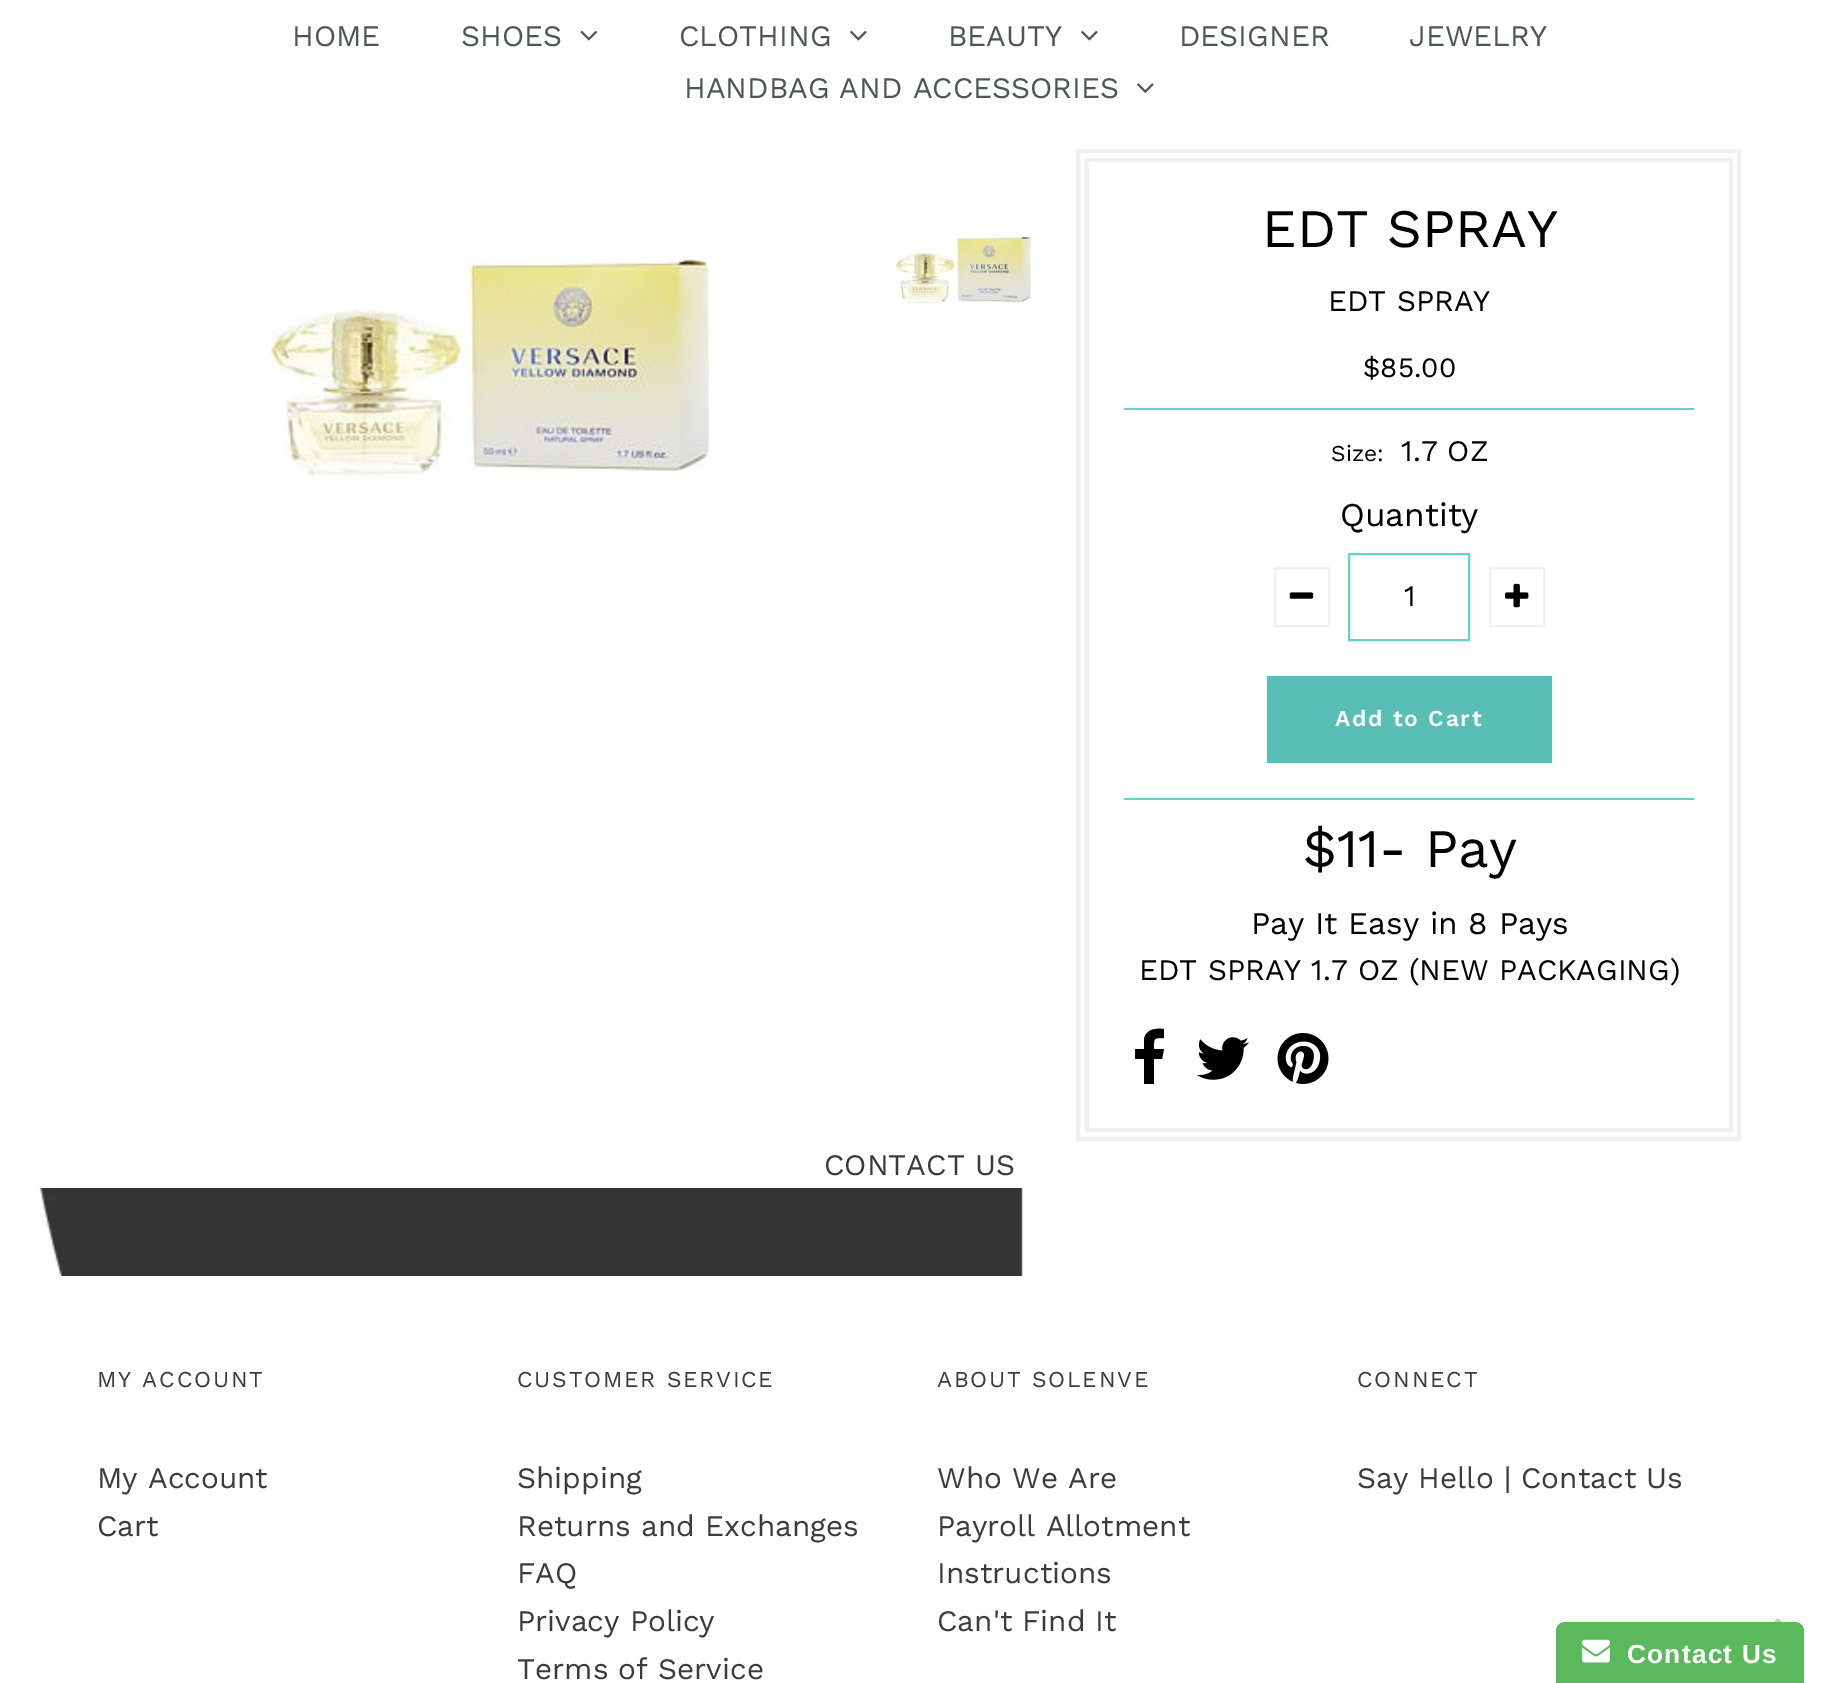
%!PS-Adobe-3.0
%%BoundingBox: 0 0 1838 1683
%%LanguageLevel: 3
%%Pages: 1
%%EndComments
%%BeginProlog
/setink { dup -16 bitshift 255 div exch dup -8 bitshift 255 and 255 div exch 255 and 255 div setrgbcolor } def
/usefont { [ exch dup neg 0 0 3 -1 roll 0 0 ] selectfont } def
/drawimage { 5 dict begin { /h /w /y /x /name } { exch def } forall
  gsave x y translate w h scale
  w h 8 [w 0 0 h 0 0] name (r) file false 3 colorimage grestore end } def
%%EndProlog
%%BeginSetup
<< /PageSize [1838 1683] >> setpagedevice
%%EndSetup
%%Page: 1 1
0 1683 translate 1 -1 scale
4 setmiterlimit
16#FFFFFF setink
0 0 1838 1683 rectfill
(img1.raw) 14 1188 1824 88 drawimage
/WorkSans-Regular 29.75 usefont
16#4C5655 setink
292 46 moveto (HOME) show
461 46 moveto (SHOES) show
(img2.raw) 580 30 18 11 drawimage
679 46 moveto (CLOTHING) show
(img3.raw) 850 30 17 11 drawimage
948 46 moveto (BEAUTY) show
(img3.raw) 1081 30 17 11 drawimage
[
    [(DESIGNER) 1179 46]
    [(JEWELRY) 1409 46]
    [(HANDBAG AND ACCESSORIES) 684 98]
] { aload pop moveto show } forall
(img4.raw) 1137 83 17 10 drawimage
(img5.raw) 271 258 438 226 drawimage
(img6.raw) 896 236 135 68 drawimage
16#F0F0F0 setink
4 setlinewidth
1078 151 661 988 rectstroke
1087 160 644 970 rectstroke
/WorkSans-Regular 54.25 usefont
16#000000 setink
1262 247 moveto (EDT SPRAY) show
/WorkSans-Regular 29.75 usefont
1328 311 moveto (EDT SPRAY) show
/WorkSans-Regular 28 usefont
1363 377 moveto ($85.00) show
16#65D1C8 setink
1124 408 570 2 rectfill
1124 798 570 2 rectfill
/WorkSans-Regular 22.75 usefont
16#000000 setink
1331 461 moveto (Size:) show
/WorkSans-Regular 29.75 usefont
1401 461 moveto (1.7 OZ) show
/WorkSans-Regular 33.25 usefont
1340 526 moveto (Quantity) show
16#F0F0F0 setink
2 setlinewidth
1275 568 54 58 rectstroke
(img7.raw) 1289 592 25 7 drawimage
16#65D1C8 setink
1349 554 120 86 rectstroke
/WorkSans-Regular 29.75 usefont
16#000000 setink
1404 606 moveto (1) show
16#F0F0F0 setink
1490 568 54 58 rectstroke
(img8.raw) 1505 583 24 25 drawimage
16#58BEB6 setink
1267 676 285 87 rectfill
/WorkSans-SemiBold 22.75 usefont
16#FFFFFF setink
1335 726 moveto 1.75 0 (Add to Cart) ashow
/WorkSans-Regular 54.25 usefont
16#000000 setink
1303 867 moveto ($11- Pay) show
/WorkSans-Regular 31.5 usefont
1251 934 moveto (Pay It Easy in 8 Pays) show
/WorkSans-Regular 29.75 usefont
1139 980 moveto (EDT SPRAY 1.7 OZ \(NEW PACKAGING\)) show
1164 1029 moveto 1164 1038 lineto 1153 1038 1154 1038 1154 1049 curveto 1164 1049 lineto 1162 1059 lineto 1154 1059 lineto 1154 1084 lineto 1144 1084 lineto 1144 1059 lineto 1135 1059 lineto 1135 1049 lineto 1144 1049 lineto 1144 1039 lineto 1146 1029 1156 1028 1164 1029 curveto closepath fill
(img9.raw) 1197 1037 52 43 drawimage
(img10.raw) 1277 1033 52 51 drawimage
16#3C3A3A setink
824 1175 moveto (CONTACT US) show
/WorkSans-Regular 22.75 usefont
97 1387 moveto 1.75 0 (MY ACCOUNT) ashow
/WorkSans-Regular 29.75 usefont
97 1488 moveto (My Account) show
97 1536 moveto (Cart) show
/WorkSans-Regular 22.75 usefont
517 1387 moveto 1.75 0 (CUSTOMER SERVICE) ashow
/WorkSans-Regular 29.75 usefont
[
    [(Shipping) 517 1488]
    [(Returns and Exchanges) 517 1536]
    [(FAQ) 517 1583]
    [(Privacy Policy) 517 1631]
    [(Terms of Service) 517 1679]
] { aload pop moveto show } forall
/WorkSans-Regular 22.75 usefont
937 1387 moveto 1.75 0 (ABOUT SOLENVE) ashow
/WorkSans-Regular 29.75 usefont
[
    [(Who We Are) 937 1488]
    [(Payroll Allotment) 937 1536]
    [(Instructions) 937 1583]
    [(Can't Find It) 937 1631]
] { aload pop moveto show } forall
/WorkSans-Regular 22.75 usefont
1357 1387 moveto 1.75 0 (CONNECT) ashow
/WorkSans-Regular 29.75 usefont
1357 1488 moveto (Say Hello | Contact Us) show
(img11.raw) 1774 1618 8 4 drawimage
16#5CB85C setink
1565 1622 moveto 1795 1622 lineto 1800 1622 1804 1626 1804 1631 curveto 1804 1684 lineto 1556 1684 lineto 1556 1631 lineto 1556 1626 1560 1622 1565 1622 curveto closepath fill
(img12.raw) 1581 1639 29 24 drawimage
/LiberationSans-Bold 26.25 usefont
16#FFFFFF setink
1627 1663 moveto 1.25 0 (Contact Us) ashow
showpage
%%EOF
